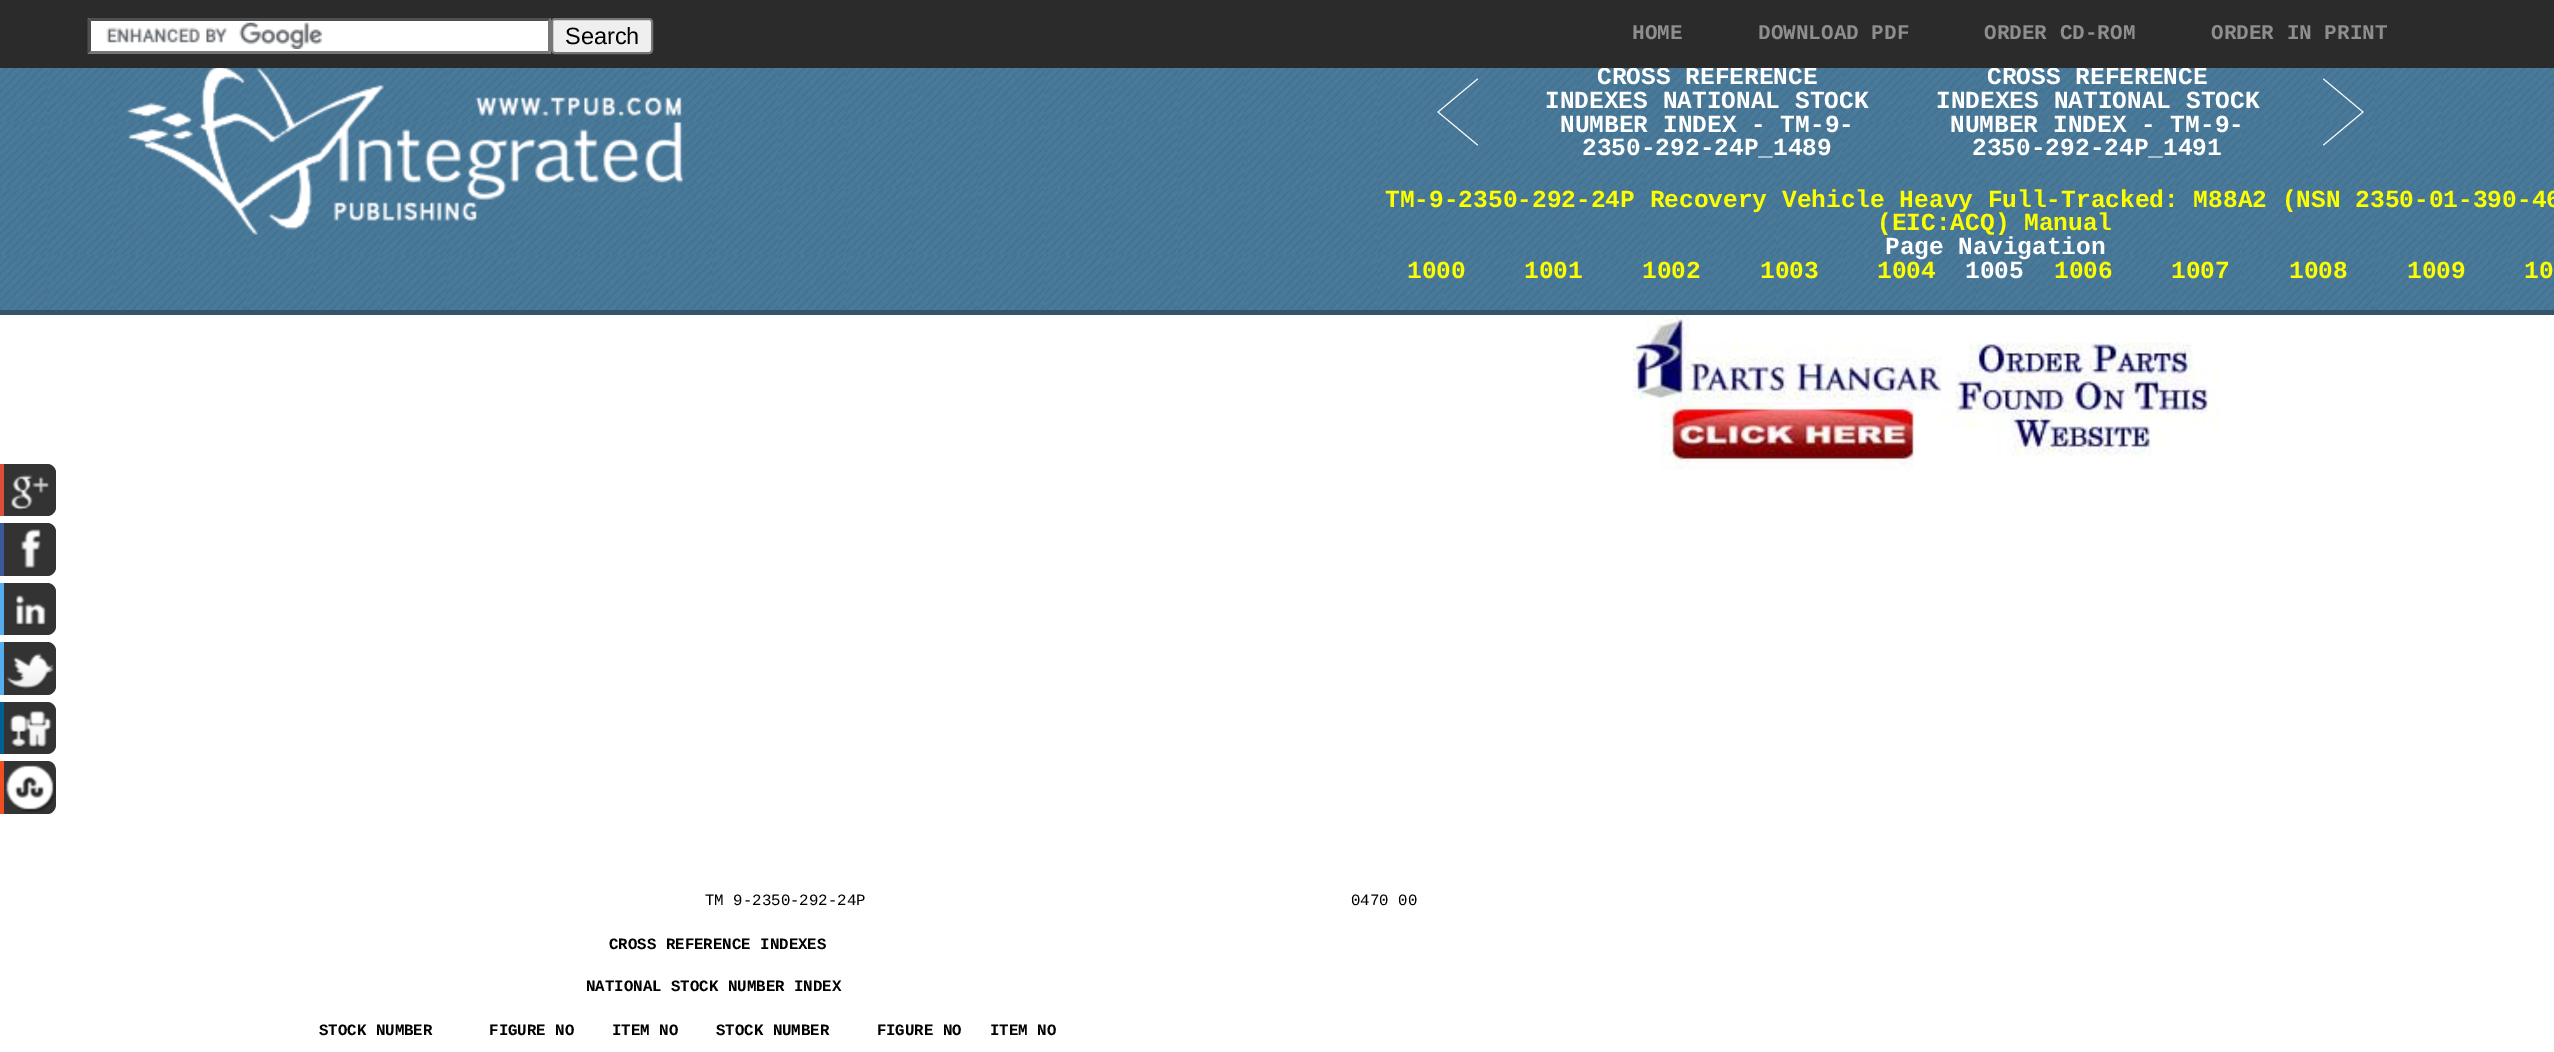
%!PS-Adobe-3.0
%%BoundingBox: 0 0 2554 1052
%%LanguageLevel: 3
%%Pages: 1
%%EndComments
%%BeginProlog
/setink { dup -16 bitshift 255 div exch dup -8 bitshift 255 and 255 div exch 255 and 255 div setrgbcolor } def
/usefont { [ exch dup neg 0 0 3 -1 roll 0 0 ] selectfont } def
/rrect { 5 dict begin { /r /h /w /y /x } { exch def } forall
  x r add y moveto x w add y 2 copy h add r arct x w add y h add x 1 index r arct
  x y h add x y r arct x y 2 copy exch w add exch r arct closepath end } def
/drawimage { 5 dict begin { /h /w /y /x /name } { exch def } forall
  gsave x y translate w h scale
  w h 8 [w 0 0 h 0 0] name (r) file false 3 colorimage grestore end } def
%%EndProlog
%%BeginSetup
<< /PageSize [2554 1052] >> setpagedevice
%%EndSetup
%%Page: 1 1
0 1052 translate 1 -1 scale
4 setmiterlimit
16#FFFFFF setink
0 0 2554 1052 rectfill
16#DD4B39 setink
-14 464 moveto 42 464 lineto 49.5 464 56 470.5 56 478 curveto 56 502 lineto 56 509.5 49.5 516 42 516 curveto -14 516 lineto closepath fill
16#333333 setink
4 464 moveto 47 464 lineto 52 464 56 468 56 473 curveto 56 507 lineto 56 512 52 516 47 516 curveto 4 516 lineto closepath fill
(img1.raw) 11 474 38 37 drawimage
16#3B5998 setink
-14 523 moveto 42 523 lineto 49.5 523 56 529.5 56 537 curveto 56 562 lineto 56 569.5 49.5 576 42 576 curveto -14 576 lineto closepath fill
16#333333 setink
4 523 moveto 47 523 lineto 52 523 56 527 56 532 curveto 56 567 lineto 56 572 52 576 47 576 curveto 4 576 lineto closepath fill
(img2.raw) 20 529 21 41 drawimage
16#55ACEE setink
-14 583 moveto 42 583 lineto 49.5 583 56 589.5 56 597 curveto 56 621 lineto 56 628.5 49.5 635 42 635 curveto -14 635 lineto closepath fill
16#333333 setink
4 583 moveto 47 583 lineto 52 583 56 587 56 592 curveto 56 626 lineto 56 631 52 635 47 635 curveto 4 635 lineto closepath fill
(img3.raw) 16 595 30 31 drawimage
16#55ACEE setink
-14 642 moveto 42 642 lineto 49.5 642 56 648.5 56 656 curveto 56 681 lineto 56 688.5 49.5 695 42 695 curveto -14 695 lineto closepath fill
16#333333 setink
4 642 moveto 47 642 lineto 52 642 56 646 56 651 curveto 56 686 lineto 56 691 52 695 47 695 curveto 4 695 lineto closepath fill
(img4.raw) 6 653 48 37 drawimage
16#005F93 setink
-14 702 moveto 42 702 lineto 49.5 702 56 708.5 56 716 curveto 56 740 lineto 56 747.5 49.5 754 42 754 curveto -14 754 lineto closepath fill
16#333333 setink
4 702 moveto 47 702 lineto 52 702 56 706 56 711 curveto 56 745 lineto 56 750 52 754 47 754 curveto 4 754 lineto closepath fill
(img5.raw) 9 710 43 39 drawimage
16#F14E23 setink
-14 761 moveto 42 761 lineto 49.5 761 56 767.5 56 775 curveto 56 800 lineto 56 807.5 49.5 814 42 814 curveto -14 814 lineto closepath fill
16#333333 setink
4 761 moveto 47 761 lineto 52 761 56 765 56 770 curveto 56 805 lineto 56 810 52 814 47 814 curveto 4 814 lineto closepath fill
(img6.raw) 6 765 50 47 drawimage
(img7.raw) 0 68 2554 242 drawimage
16#33546B setink
0 310 2554 5 rectfill
/LiberationMono-Bold 24.5 usefont
16#FFFFFF setink
1597 84 moveto (CROSS REFERENCE) show
1987 84 moveto (CROSS REFERENCE) show
16#2B2B2B setink
0 0 2554 68 rectfill
16#FFFFFF setink
88 18 463 36 rectfill
(img8.raw) 106 22 216 27 drawimage
16#4F4F4F setink
88 18 moveto 551 18 lineto 548 21 lineto 91 21 lineto closepath fill
16#767676 setink
551 17.5 moveto 551 54 lineto 548 51 lineto 548 21 lineto closepath fill
551 54 moveto 88 54 lineto 91 51 lineto 548 51 lineto closepath fill
16#4F4F4F setink
87.5 54 moveto 87.5 17.5 lineto 91 21 lineto 91 51 lineto closepath fill
16#EFEFEF setink
552 19 100 34 3 rrect gsave fill grestore
16#767676 setink
2 setlinewidth
stroke
/LiberationSans-Regular 23.5 usefont
16#000000 setink
565 44 moveto (Search) show
/LiberationMono-Bold 21 usefont
16#8E8E8E setink
[
    [(HOME) 1632 39]
    [(DOWNLOAD PDF) 1758 39]
    [(ORDER CD-ROM) 1984 39]
    [(ORDER IN PRINT) 2211 39]
] { aload pop moveto show } forall
(img9.raw) 127 68 556 167 drawimage
16#FFFFFF setink
0.9 setlinewidth
1 setlinecap
1 setlinejoin
1477.5 145 moveto 1438 112 lineto 1477.5 79 lineto stroke
/LiberationMono-Bold 24.5 usefont
[
    [(INDEXES NATIONAL STOCK) 1545 108]
    [(NUMBER INDEX - TM-9-) 1560 132]
    [(2350-292-24P_1489) 1582 155]
    [(INDEXES NATIONAL STOCK) 1936 108]
    [(NUMBER INDEX - TM-9-) 1950 132]
    [(2350-292-24P_1491) 1972 155]
] { aload pop moveto show } forall
2323.5 79 moveto 2363 112 lineto 2323.5 145 lineto stroke
16#FCFF00 setink
1385 207 moveto (TM-9-2350-292-24P Recovery Vehicle Heavy Full-Tracked: M88A2 \(NSN 2350-01-390-46) show
1877 230 moveto (\(EIC:ACQ\) Manual) show
16#FFFFFF setink
1885 254 moveto (Page Navigation) show
16#FCFF00 setink
[
    [(1000) 1407 278]
    [(1001) 1524 278]
    [(1002) 1642 278]
    [(1003) 1760 278]
    [(1004) 1877 278]
] { aload pop moveto show } forall
16#FFFFFF setink
1965 278 moveto (1005) show
16#FCFF00 setink
[
    [(1006) 2054 278]
    [(1007) 2171 278]
    [(1008) 2289 278]
    [(1009) 2407 278]
    [(10) 2524 278]
] { aload pop moveto show } forall
(img10.raw) 1632 315 589 155 drawimage
/LiberationMono-Regular 15.75 usefont
16#000000 setink
705 905 moveto (TM 9-2350-292-24P) show
1351 905 moveto (0470 00) show
/LiberationMono-Bold 15.75 usefont
[
    [(CROSS REFERENCE INDEXES) 609 949]
    [(NATIONAL STOCK NUMBER INDEX) 586 991]
    [(STOCK NUMBER      FIGURE NO    ITEM NO    STOCK NUMBER     FIGURE NO   ITEM NO) 319 1035]
] { aload pop moveto show } forall
showpage
%%EOF
